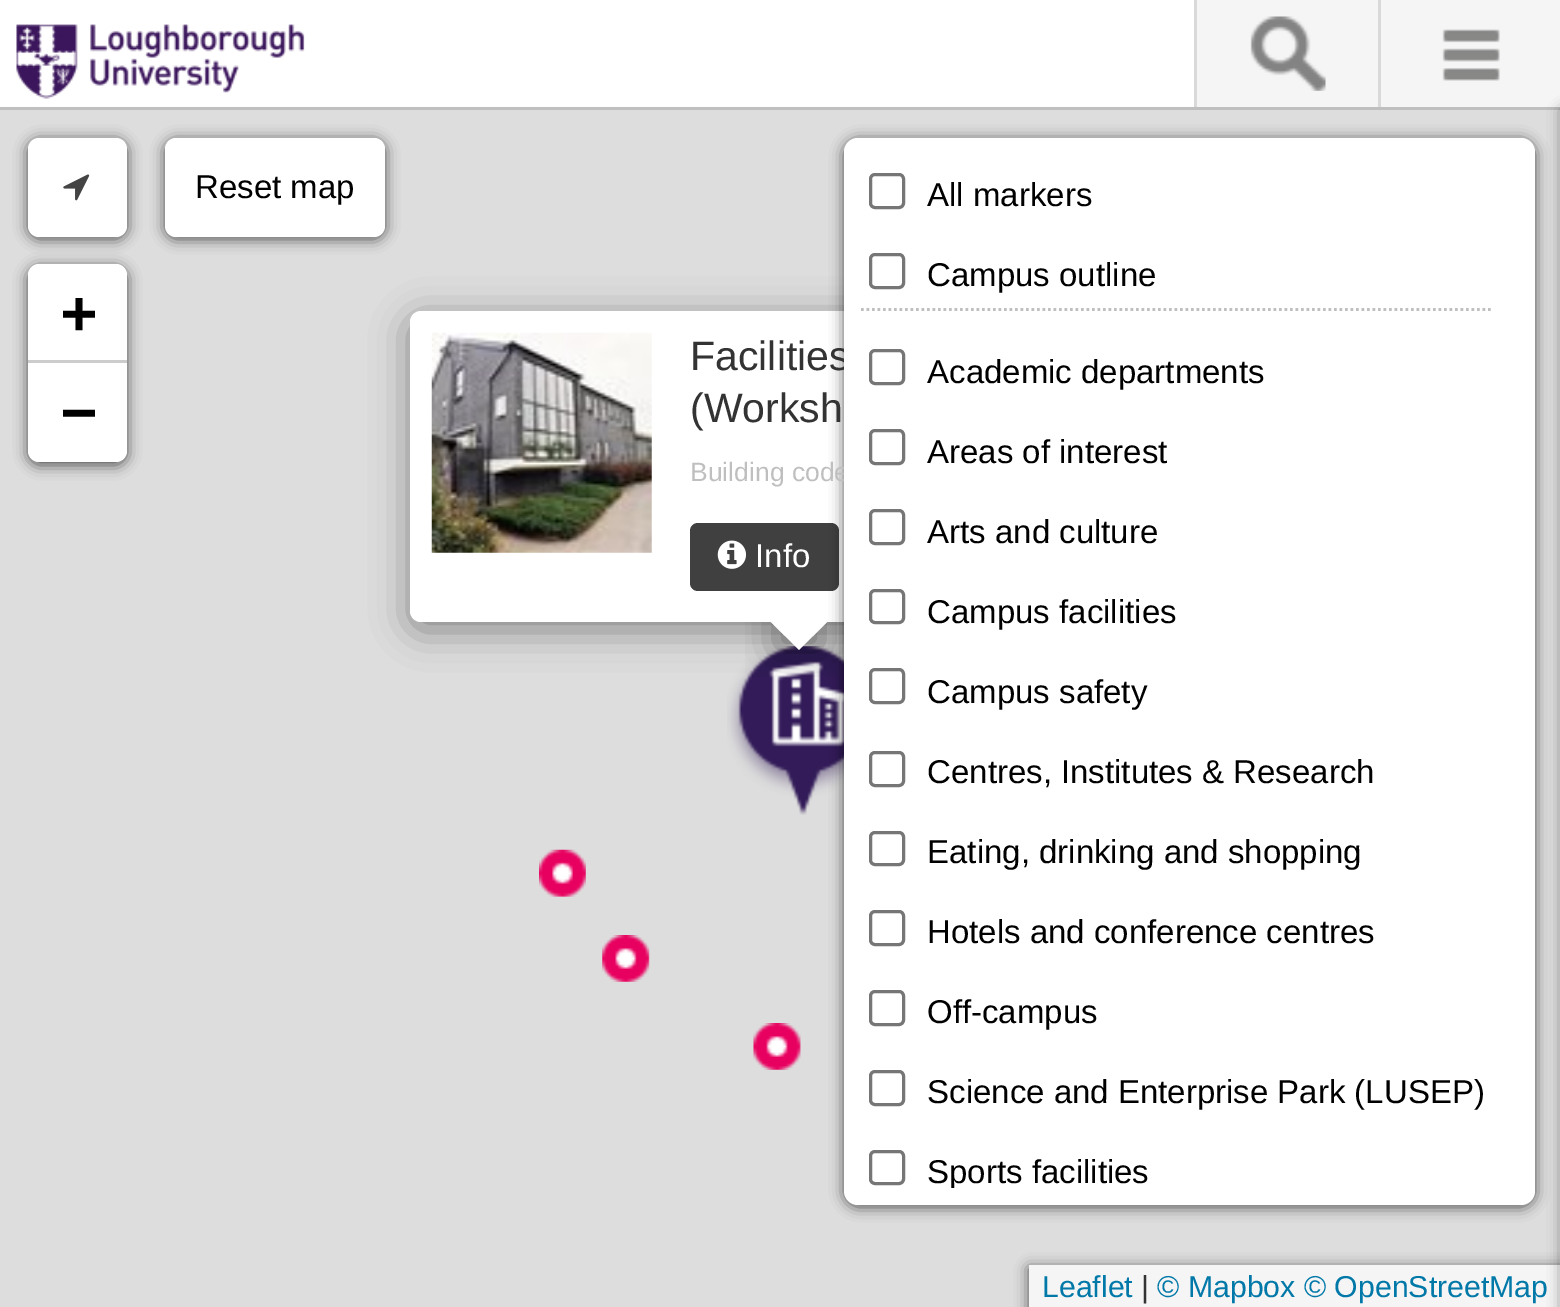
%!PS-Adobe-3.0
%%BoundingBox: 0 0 1560 1307
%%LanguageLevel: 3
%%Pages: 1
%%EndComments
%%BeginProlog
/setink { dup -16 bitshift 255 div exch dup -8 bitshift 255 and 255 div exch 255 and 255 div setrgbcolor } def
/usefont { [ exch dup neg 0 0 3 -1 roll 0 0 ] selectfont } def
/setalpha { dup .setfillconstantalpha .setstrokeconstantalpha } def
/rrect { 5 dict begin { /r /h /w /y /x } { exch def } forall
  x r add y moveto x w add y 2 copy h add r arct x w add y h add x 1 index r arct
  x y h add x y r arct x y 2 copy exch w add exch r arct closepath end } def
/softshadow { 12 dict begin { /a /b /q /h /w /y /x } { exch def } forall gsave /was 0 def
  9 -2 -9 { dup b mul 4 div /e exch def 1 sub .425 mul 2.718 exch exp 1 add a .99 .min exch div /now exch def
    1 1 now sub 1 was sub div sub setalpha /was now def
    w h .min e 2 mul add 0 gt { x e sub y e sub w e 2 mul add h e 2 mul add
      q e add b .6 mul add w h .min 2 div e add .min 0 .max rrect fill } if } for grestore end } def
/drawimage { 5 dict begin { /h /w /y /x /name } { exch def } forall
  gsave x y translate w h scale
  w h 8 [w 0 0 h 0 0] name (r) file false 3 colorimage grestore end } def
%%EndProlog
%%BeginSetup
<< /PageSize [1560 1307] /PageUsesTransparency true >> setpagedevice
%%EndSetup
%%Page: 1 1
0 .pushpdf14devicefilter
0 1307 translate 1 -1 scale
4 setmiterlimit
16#FFFFFF setink
0 0 1560 1307 rectfill
16#F5F5F5 setink
1197 0 181 107 rectfill
(img1.raw) 1250 16 76 75 drawimage
16#D9D9D9 setink
1194 0 3 107 rectfill
16#F5F5F5 setink
1381 0 179 107 rectfill
(img2.raw) 1442 29 58 52 drawimage
16#D9D9D9 setink
1378 0 3 107 rectfill
16#BFBFBF setink
0 107 1560 3 rectfill
(img3.raw) 16 24 289 75 drawimage
16#DDDDDD setink
0 110 1560 1197 rectfill
16#000000 setink
28 140 99 99 11 7 0.65 softshadow
16#FFFFFF setink
28 138 99 99 11 rrect fill
(img4.raw) 63 174 27 27 drawimage
16#000000 setink
165 140 220 99 11 7 0.65 softshadow
16#FFFFFF setink
165 138 220 99 11 rrect fill
/LiberationSans-Regular 33 usefont
16#000000 setink
195 198 moveto (Reset map) show
28 267 99 198 11 7 0.65 softshadow
16#FFFFFF setink
39 264 moveto 116 264 lineto 122 264 127 269 127 275 curveto 127 363 lineto 28 363 lineto 28 275 lineto 28 269 33 264 39 264 curveto closepath fill
16#CCCCCC setink
28 360 99 3 rectfill
/DejaVuSansMono-Bold 60 usefont
16#000000 setink
61 333 moveto (+) show
16#FFFFFF setink
28 363 moveto 127 363 lineto 127 451 lineto 127 457 122 462 116 462 curveto 39 462 lineto 33 462 28 457 28 451 curveto closepath fill
16#000000 setink
61 432 moveto (−) show
(img7.raw) 727 646 117 169 drawimage
410 319 778 311 11 19 0.4 softshadow
16#FFFFFF setink
410 311 778 311 11 rrect fill
16#404040 setink
690 523 149 68 8 rrect fill
(img6.raw) 717 540 29 29 drawimage
gsave
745 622 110 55 rectclip
16#000000 setink
776 602 46 47 0 19.5 0.4 softshadow
grestore
gsave
745 622 110 55 rectclip
16#FFFFFF setink
799 584 moveto 832 617 lineto 799 650 lineto 766 617 lineto closepath fill
grestore
16#000000 setink
844 140 691 1067 14 7 0.65 softshadow
/LiberationSans-Regular 41 usefont
16#333333 setink
690 370 moveto (Facilities) show
/LiberationSans-Regular 26.5 usefont
16#BFBFBF setink
690 481 moveto (Building code) show
16#FFFFFF setink
844 138 691 1067 14 rrect fill
16#767676 setink
3 setlinewidth
870.5 174.5 33 33 4.5 rrect stroke
/LiberationSans-Regular 33 usefont
16#000000 setink
927 206 moveto (All markers) show
16#BFBFBF setink
2.8 setlinewidth
[2.75 2.75] 0 setdash
861 309.5 moveto 1493 309.5 lineto stroke
16#767676 setink
3 setlinewidth
[] 0 setdash
870.5 254.5 33 33 4.5 rrect stroke
16#000000 setink
927 286 moveto (Campus outline) show
16#767676 setink
870.5 350.5 33 33 4.5 rrect stroke
16#000000 setink
927 383 moveto (Academic departments) show
16#767676 setink
870.5 430.5 33 33 4.5 rrect stroke
16#000000 setink
927 463 moveto (Areas of interest) show
16#767676 setink
870.5 510.5 33 33 4.5 rrect stroke
16#000000 setink
927 543 moveto (Arts and culture) show
16#767676 setink
870.5 590.5 33 32 4.5 rrect stroke
16#000000 setink
927 623 moveto (Campus facilities) show
16#767676 setink
870.5 669.5 33 33 4.5 rrect stroke
16#000000 setink
927 703 moveto (Campus safety) show
16#767676 setink
870.5 752.5 33 33 4.5 rrect stroke
16#000000 setink
927 783 moveto (Centres, Institutes & Research) show
16#767676 setink
870.5 832.5 33 32 4.5 rrect stroke
16#000000 setink
927 863 moveto (Eating, drinking and shopping) show
16#767676 setink
870.5 911.5 33 33 4.5 rrect stroke
16#000000 setink
927 943 moveto (Hotels and conference centres) show
16#767676 setink
870.5 991.5 33 33 4.5 rrect stroke
16#000000 setink
927 1023 moveto (Off-campus) show
16#767676 setink
870.5 1071.5 33 33 4.5 rrect stroke
16#000000 setink
927 1103 moveto (Science and Enterprise Park \(LUSEP\)) show
16#767676 setink
870.5 1151.5 33 32 4.5 rrect stroke
gsave
861 154 646 1034 rectclip
16#000000 setink
927 1183 moveto (Sports facilities) show
grestore
16#000000 setink
1029 1268 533 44 0 7 0.65 softshadow
16#F5F5F5 setink
1029 1265 531 42 rectfill
/LiberationSans-Regular 30.25 usefont
16#0078A8 setink
1042 1297 moveto (Leaflet) show
16#333333 setink
1141 1297 moveto (|) show
16#0078A8 setink
1157 1297 moveto (© Mapbox © OpenStreetMap) show
(img5.raw) 431 332 221 221 drawimage
/LiberationSans-Regular 41 usefont
16#333333 setink
690 422 moveto (\(Worksh) show
/LiberationSans-Regular 33 usefont
16#FFFFFF setink
755 567 moveto (Info) show
(img8.raw) 539 849 47 48 drawimage
(img9.raw) 602 935 48 47 drawimage
(img10.raw) 753 1023 48 47 drawimage
16#000000 setink
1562 110 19 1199 0 7 0.5 softshadow
.poppdf14devicefilter showpage
%%EOF
